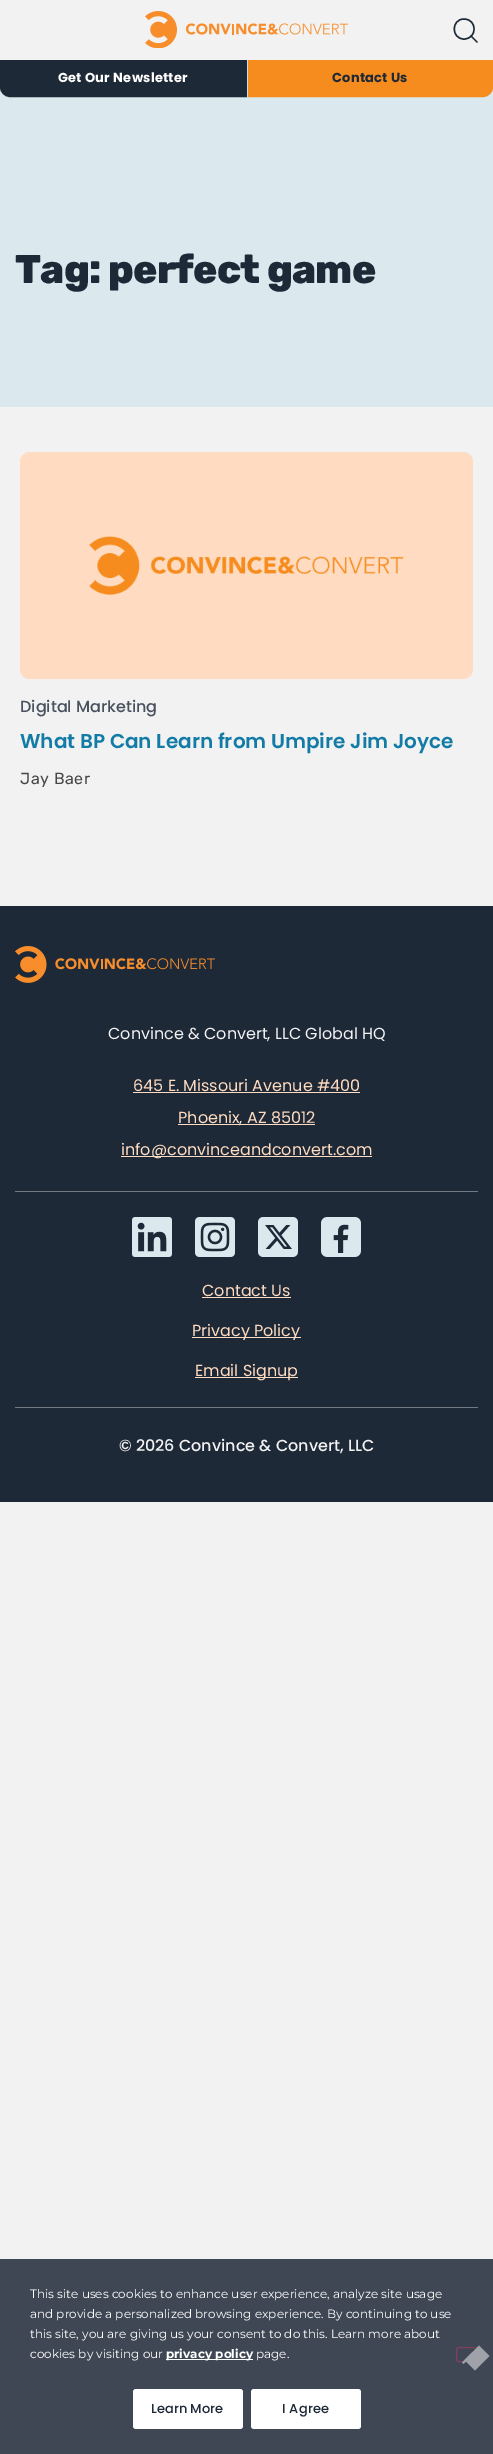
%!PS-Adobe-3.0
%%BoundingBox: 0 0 493 2454
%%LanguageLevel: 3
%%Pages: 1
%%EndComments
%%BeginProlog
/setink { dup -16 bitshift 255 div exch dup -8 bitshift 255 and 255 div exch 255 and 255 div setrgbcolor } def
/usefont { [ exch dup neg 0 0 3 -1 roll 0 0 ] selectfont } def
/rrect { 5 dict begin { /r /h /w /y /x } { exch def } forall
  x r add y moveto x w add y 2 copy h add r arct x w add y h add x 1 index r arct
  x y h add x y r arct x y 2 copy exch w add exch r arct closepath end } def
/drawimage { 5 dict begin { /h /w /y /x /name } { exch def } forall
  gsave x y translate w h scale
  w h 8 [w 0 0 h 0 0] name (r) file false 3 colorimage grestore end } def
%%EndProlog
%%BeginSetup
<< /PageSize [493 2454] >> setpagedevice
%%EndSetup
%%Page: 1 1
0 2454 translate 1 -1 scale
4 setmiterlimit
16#F2F2F3 setink
0 0 493 2454 rectfill
(img1.raw) 145 11 203 37 drawimage
16#1E2937 setink
1.4 setlinewidth
1 setlinecap
1 setlinejoin
464 39 moveto 477.5 39 477.5 19 464 19 curveto 451 19 451 39 464 39 curveto closepath stroke
gsave
453 18 25 25 3 rrect clip newpath
471 36 moveto 477 42 lineto stroke
grestore
16#DBE9EE setink
0 87 493 320 rectfill
16#1E2937 setink
1 61 moveto 246 61 lineto 246 96 lineto 10 96 lineto 5 96 1 92 1 87 curveto closepath gsave fill grestore
2 setlinewidth
0 setlinecap
0 setlinejoin
stroke
/Poppins-Bold 13 usefont
16#FFFFFF setink
58 82 moveto 0.25 0 (Get Our Newsletter) ashow
16#D2E0E5 setink
247 60 1 37 rectfill
16#F68C1E setink
249 61 moveto 492 61 lineto 492 87 lineto 492 92 488 96 483 96 curveto 249 96 lineto closepath gsave fill grestore
stroke
16#1E2937 setink
332 82 moveto 0.25 0 (Contact Us) ashow
/Rubik-ExtraBold 40 usefont
15 283 moveto -0.75 0 (Tag: perfect game) ashow
16#FFDCC1 setink
20 452 453 227 10 rrect fill
(img2.raw) 89 536 315 59 drawimage
/Poppins-Medium 16 usefont
16#48515D setink
20 712 moveto (Digital Marketing) show
/Poppins-SemiBold 20 usefont
16#137CA6 setink
20 748 moveto (What BP Can Learn from Umpire Jim Joyce) show
/Rubik-Regular 16 usefont
16#474747 setink
20 784 moveto 0.5 0 (Jay Baer) ashow
16#1E2937 setink
0 906 493 596 rectfill
16#737982 setink
15 1191 463 1 rectfill
(img3.raw) 15 946 200 37 drawimage
/Poppins-Regular 16 usefont
16#F2F2F3 setink
108 1039 moveto (Convince & Convert, LLC Global HQ) show
16#FFDCC1 setink
133 1091 moveto (645 E. Missouri Avenue #400) show
133 1092 227 1 rectfill
178 1124 137 1 rectfill
178 1123 moveto (Phoenix, AZ 85012) show
121 1156 251 1 rectfill
121 1155 moveto (info@convinceandconvert.com) show
16#737982 setink
15 1407 463 1 rectfill
(img4.raw) 132 1217 40 40 drawimage
(img5.raw) 195 1217 40 40 drawimage
(img6.raw) 258 1217 40 40 drawimage
(img7.raw) 321 1217 40 40 drawimage
16#FFDCC1 setink
202 1296 moveto (Contact Us) show
202 1297 89 1 rectfill
192 1337 109 1 rectfill
192 1336 moveto (Privacy Policy) show
195 1377 103 1 rectfill
195 1376 moveto (Email Signup) show
/Poppins-Medium 16 usefont
16#F2F2F3 setink
119 1451 moveto (© 2026 Convince & Convert, LLC) show
16#3E4753 setink
0 2259 493 195 rectfill
/Montserrat-Regular 12 usefont
16#FFFFFF setink
[
    [(This site uses cookies to enhance user experience, analyze site usage) 30 2298]
    [(and provide a personalized browsing experience. By continuing to use) 30 2318]
    [(this site, you are giving us your consent to do this. Learn more about) 30 2338]
    [(cookies by visiting our) 30 2358]
] { aload pop moveto show } forall
166 2359 87 1 rectfill
/Montserrat-Bold 12 usefont
166 2358 moveto (privacy policy) show
/Montserrat-Regular 12 usefont
256 2358 moveto (page.) show
133 2389 110 40 3 rrect fill
/Poppins-Medium 13 usefont
16#1E2937 setink
151 2413 moveto (Learn More) show
16#FFFFFF setink
251 2389 110 40 3 rrect fill
16#1E2937 setink
282 2413 moveto 0.25 0 (I Agree) ashow
16#853D5D setink
1 setlinewidth
456.5 2347.5 21 14 2.5 rrect stroke
16#9FA3A9 setink
472.5 2352 moveto 474 2353.5 lineto 463.5 2364 lineto 462 2362.5 lineto closepath fill
464.5 2360 moveto 479 2345.5 lineto 489.5 2356 lineto 475 2370.5 lineto closepath fill
showpage
%%EOF
